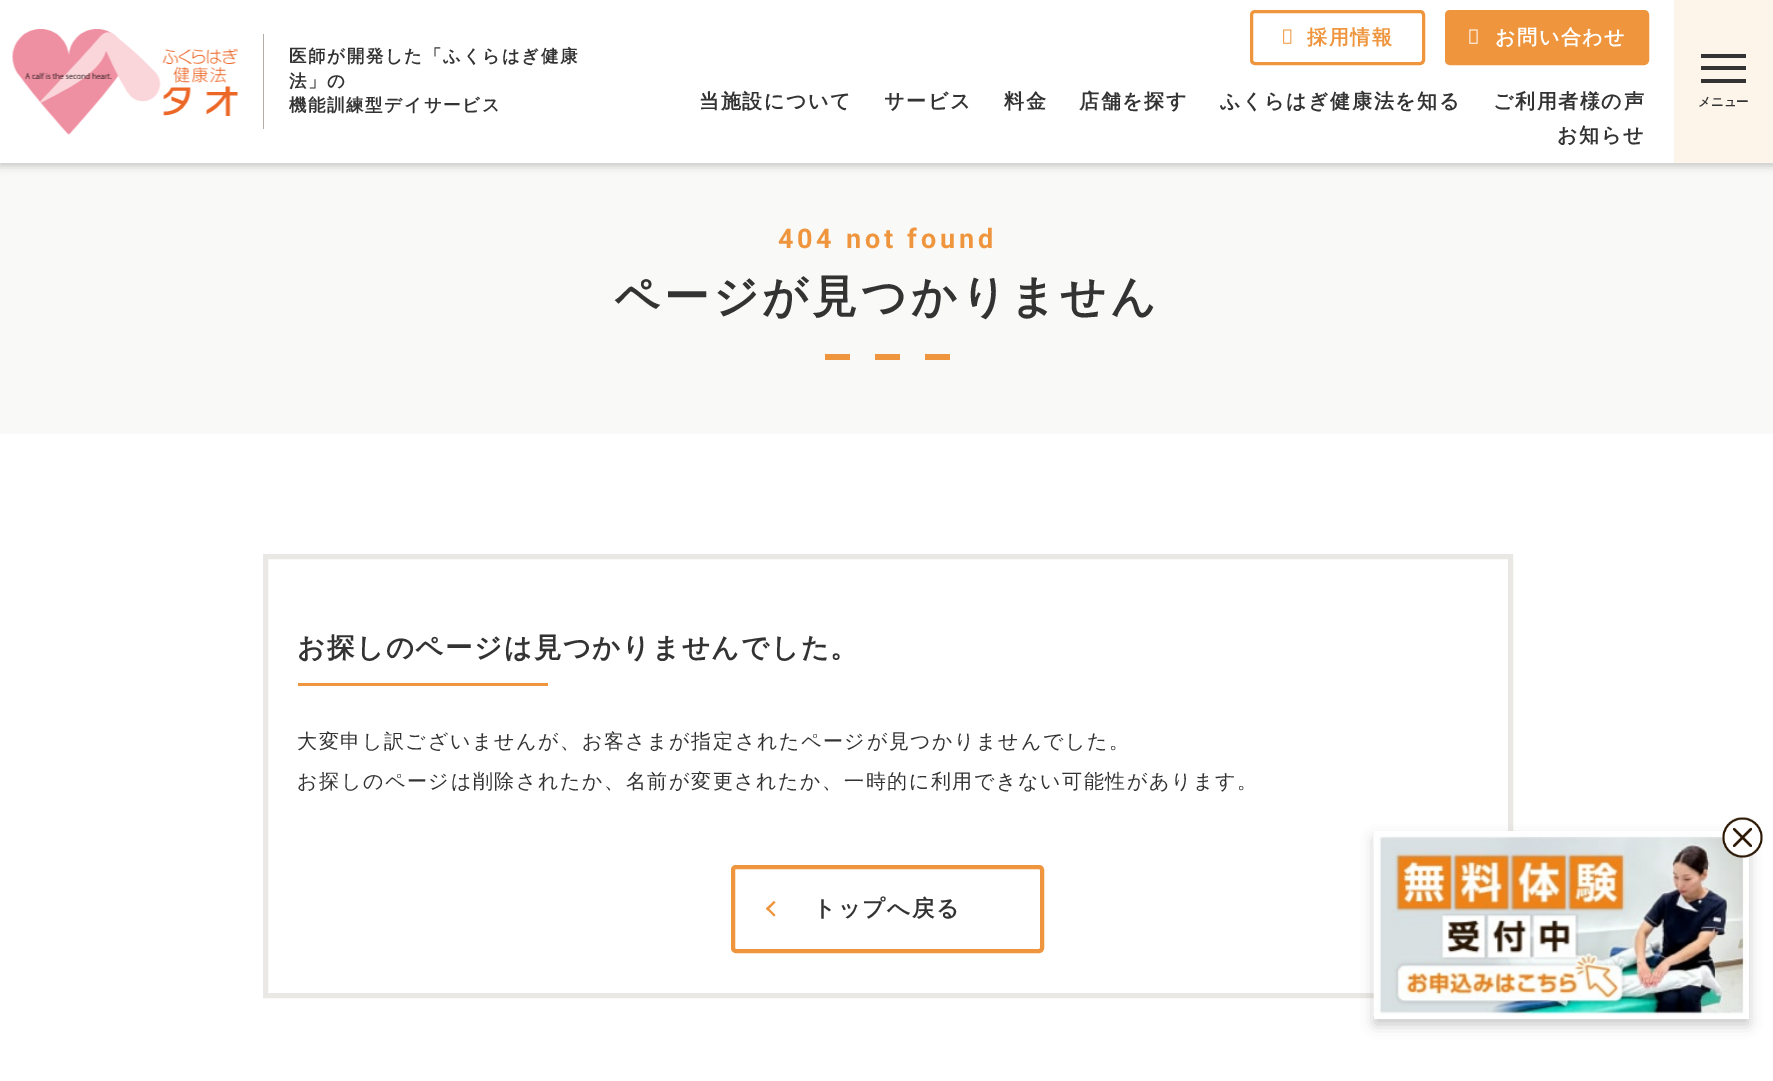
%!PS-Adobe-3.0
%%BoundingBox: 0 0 1773 1081
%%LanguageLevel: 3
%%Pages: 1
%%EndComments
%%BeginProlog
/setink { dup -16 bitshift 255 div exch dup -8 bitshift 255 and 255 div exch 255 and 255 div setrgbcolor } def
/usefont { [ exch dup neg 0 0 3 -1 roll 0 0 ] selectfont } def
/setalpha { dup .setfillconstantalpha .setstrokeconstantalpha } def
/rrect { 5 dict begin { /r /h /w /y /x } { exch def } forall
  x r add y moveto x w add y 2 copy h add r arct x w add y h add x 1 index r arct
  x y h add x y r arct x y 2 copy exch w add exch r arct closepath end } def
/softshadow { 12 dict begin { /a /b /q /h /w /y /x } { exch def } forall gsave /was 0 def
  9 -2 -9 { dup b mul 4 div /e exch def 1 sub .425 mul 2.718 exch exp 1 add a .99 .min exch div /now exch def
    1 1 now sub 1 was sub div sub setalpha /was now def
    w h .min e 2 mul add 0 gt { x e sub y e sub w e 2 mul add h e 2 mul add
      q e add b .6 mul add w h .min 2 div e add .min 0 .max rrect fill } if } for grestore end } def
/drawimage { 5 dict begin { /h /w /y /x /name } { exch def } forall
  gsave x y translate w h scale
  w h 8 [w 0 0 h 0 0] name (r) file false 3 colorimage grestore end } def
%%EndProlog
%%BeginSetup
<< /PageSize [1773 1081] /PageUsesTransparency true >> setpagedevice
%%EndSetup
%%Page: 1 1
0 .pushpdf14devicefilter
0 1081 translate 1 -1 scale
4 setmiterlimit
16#FFFFFF setink
0 0 1773 1081 rectfill
16#F9F9F8 setink
0 163 1773 271 rectfill
16#000000 setink
0 4 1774 162 0 4 0.2 softshadow
16#FFFFFF setink
0 0 1674 163 rectfill
(img1.raw) 12 29 226 106 drawimage
16#B3AEAA setink
263 34 1 95 rectfill
/WenQuanYiZenHei-Bold 17.5 usefont
16#333333 setink
289 62 moveto 1.6 0 (医師が開発した「ふくらはぎ健康) ashow
289 87 moveto 1.6 0 (法」の) ashow
289 111 moveto 1.6 0 (機能訓練型デイサービス) ashow
16#EE953D setink
3 setlinewidth
1251.5 11.5 172 52 3.5 rrect stroke
(img2.raw) 1283 29 9 15 drawimage
/WenQuanYiZenHei-Bold 20 usefont
1307 44 moveto 1.6 0 (採用情報) ashow
1446.5 11.5 201 52 3.5 rrect gsave fill grestore
stroke
(img3.raw) 1469 29 9 15 drawimage
16#FFFFFF setink
1495 44 moveto 1.6 0 (お問い合わせ) ashow
16#333333 setink
699 108 moveto 1.6 0 (当施設について) ashow
884 108 moveto 1.6 0 (サービス) ashow
1004 108 moveto 1.6 0 (料金) ashow
1079 108 moveto 1.6 0 (店舗を探す) ashow
1220 108 moveto 1.6 0 (ふくらはぎ健康法を知る) ashow
1493 108 moveto 1.6 0 (ご利用者様の声) ashow
1557 142 moveto 1.6 0 (お知らせ) ashow
[
    [1674 0 99 163 16#FDF4EA]
    [1701 66 45 4 16#333333]
    [1701 54 45 4 16#333333]
    [1701 79 45 4 16#333333]
] { aload pop setink rectfill } forall
/WenQuanYiZenHei-Bold 12.5 usefont
1698 106 moveto (メニュー) show
/Roboto-Bold 27 usefont
16#EE953D setink
778 248 moveto 3.75 0 (404 not found) ashow
/WenQuanYiZenHei-Bold 45 usefont
16#333333 setink
614 312 moveto 3.75 0 (ページが見つかりません) ashow
16#EE953D setink
950 360 moveto 925 360 lineto 925 354 lineto 950 354 lineto closepath 900 360 moveto 875 360 lineto 875 354 lineto 900 354 lineto closepath 850 360 moveto 825 360 lineto 825 354 lineto 850 354 lineto closepath fill
16#EAE8E5 setink
5 setlinewidth
265.5 556.5 1245 439 rectstroke
/WenQuanYiZenHei-Bold 27.5 usefont
16#333333 setink
297 657 moveto 1.6 0 (お探しのページは見つかりませんでした。) ashow
16#EE953D setink
298 683 250 3 rectfill
/WenQuanYiZenHei-Medium 20 usefont
16#333333 setink
297 748 moveto 1.6 0 (大変申し訳ございませんが、お客さまが指定されたページが見つかりませんでした。) ashow
297 788 moveto 1.6 0 (お探しのページは削除されたか、名前が変更されたか、一時的に利用できない可能性があります。) ashow
16#EE953D setink
4 setlinewidth
733 867 309 84 3 rrect stroke
774 916.5 moveto 766 908.5 lineto 767.5 907 lineto 775.5 915 lineto closepath fill
767.5 910.5 moveto 766 908.5 lineto 774 901 lineto 775.5 902.5 lineto closepath fill
/WenQuanYiZenHei-Bold 22.5 usefont
16#333333 setink
813 916 moveto 1.6 0 (トップへ戻る) ashow
16#000000 setink
1375 839 373 185 0 7 0.23 softshadow
16#FFFFFF setink
1374 831 375 188 rectfill
(img5.raw) 1373 836 374 180 drawimage
(img4.raw) 1722 817 41 41 drawimage
.poppdf14devicefilter showpage
%%EOF
